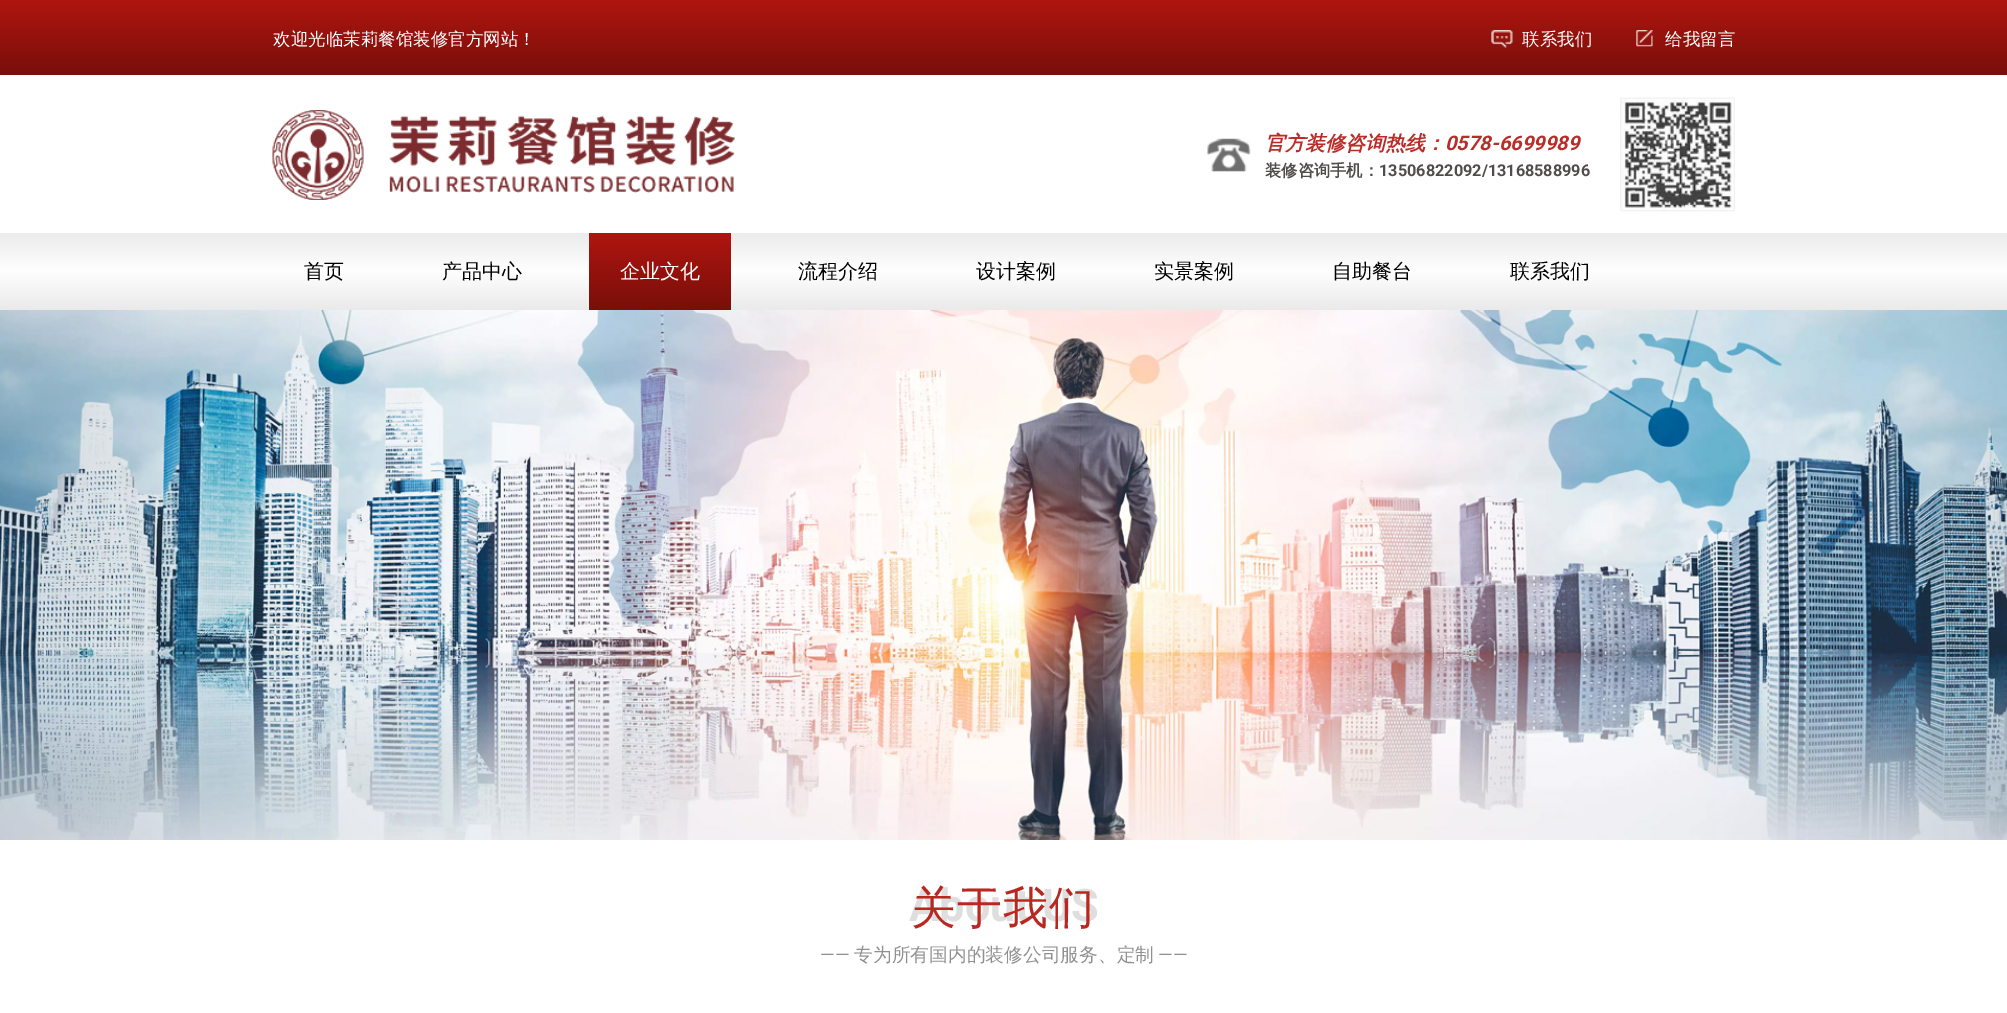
%!PS-Adobe-3.0
%%BoundingBox: 0 0 2007 1013
%%LanguageLevel: 3
%%Pages: 1
%%EndComments
%%BeginProlog
/setink { dup -16 bitshift 255 div exch dup -8 bitshift 255 and 255 div exch 255 and 255 div setrgbcolor } def
/usefont { [ exch dup neg 0 0 3 -1 roll 0 0 ] selectfont } def
/drawimage { 5 dict begin { /h /w /y /x /name } { exch def } forall
  gsave x y translate w h scale
  w h 8 [w 0 0 h 0 0] name (r) file false 3 colorimage grestore end } def
%%EndProlog
%%BeginSetup
<< /PageSize [2007 1013] >> setpagedevice
%%EndSetup
%%Page: 1 1
0 1013 translate 1 -1 scale
4 setmiterlimit
16#FFFFFF setink
0 0 2007 1013 rectfill
gsave 0 0 moveto 2007 0 lineto 2007 75 lineto 0 75 lineto closepath clip newpath
<< /ShadingType 2 /ColorSpace /DeviceRGB /Coords [1004 0 1004 75] /Extend [true true] /Function << /FunctionType 2 /Domain [0 1] /C0 [0.69 0.082 0.059] /C1 [0.471 0.059 0.039] /N 1 >> >> shfill grestore
/WenQuanYiZenHei-Medium 17.5 usefont
273 45 moveto (欢迎光临茉莉餐馆装修官方网站！) show
(img1.raw) 1491 30 22 18 drawimage
1522 45 moveto (联系我们) show
(img2.raw) 1636 30 17 17 drawimage
1665 45 moveto (给我留言) show
(img3.raw) 272 110 463 90 drawimage
(img4.raw) 1207 138 44 34 drawimage
/WenQuanYiZenHei-BoldItalic 20 usefont
16#BA2C27 setink
1265 150 moveto (官方装修咨询热线：) show
/Roboto-BoldItalic 20 usefont
1445 150 moveto (0578-6699989) show
/WenQuanYiZenHei-Bold 16.25 usefont
16#504C4B setink
1265 176 moveto (装修咨询手机：) show
/Roboto-Bold 16.25 usefont
1379 176 moveto (13506822092/13168588996) show
(img5.raw) 1620 97 115 115 drawimage
gsave 0 233 moveto 2007 233 lineto 2007 310 lineto 0 310 lineto closepath clip newpath
<< /ShadingType 2 /ColorSpace /DeviceRGB /Coords [1004 232 1004 310] /Extend [true true] /Function << /FunctionType 3 /Domain [0 1] /Functions [<< /FunctionType 2 /Domain [0 1] /C0 [0.922 0.922 0.922] /C1 [0.996 0.996 0.996] /N 1 >> << /FunctionType 2 /Domain [0 1] /C0 [0.996 0.996 0.996] /C1 [0.922 0.918 0.918] /N 1 >>] /Bounds [0.5] /Encode [0 1 0 1] >> >> shfill grestore
/WenQuanYiZenHei-Medium 20 usefont
16#000000 setink
304 278 moveto (首页) show
442 278 moveto (产品中心) show
gsave 589 233 moveto 731 233 lineto 731 310 lineto 589 310 lineto closepath clip newpath
<< /ShadingType 2 /ColorSpace /DeviceRGB /Coords [660 233 660 310] /Extend [true true] /Function << /FunctionType 2 /Domain [0 1] /C0 [0.69 0.082 0.059] /C1 [0.471 0.059 0.039] /N 1 >> >> shfill grestore
16#FFFFFF setink
620 278 moveto (企业文化) show
16#000000 setink
[
    [(流程介绍) 798 278]
    [(设计案例) 976 278]
    [(实景案例) 1154 278]
    [(自助餐台) 1332 278]
    [(联系我们) 1510 278]
] { aload pop moveto show } forall
(img6.raw) 0 310 2007 530 drawimage
/Roboto-Bold 45 usefont
16#DEDEDE setink
909 921 moveto (About US) show
/WenQuanYiZenHei-Medium 45 usefont
16#B92721 setink
911 923 moveto 1 0 (关于我们) ashow
/Roboto-Regular 18.75 usefont
16#909090 setink
820 961 moveto (——) show
/WenQuanYiZenHei-Medium 18.75 usefont
854 961 moveto (专为所有国内的装修公司服务、定制) show
/Roboto-Regular 18.75 usefont
1158 961 moveto (——) show
showpage
%%EOF
